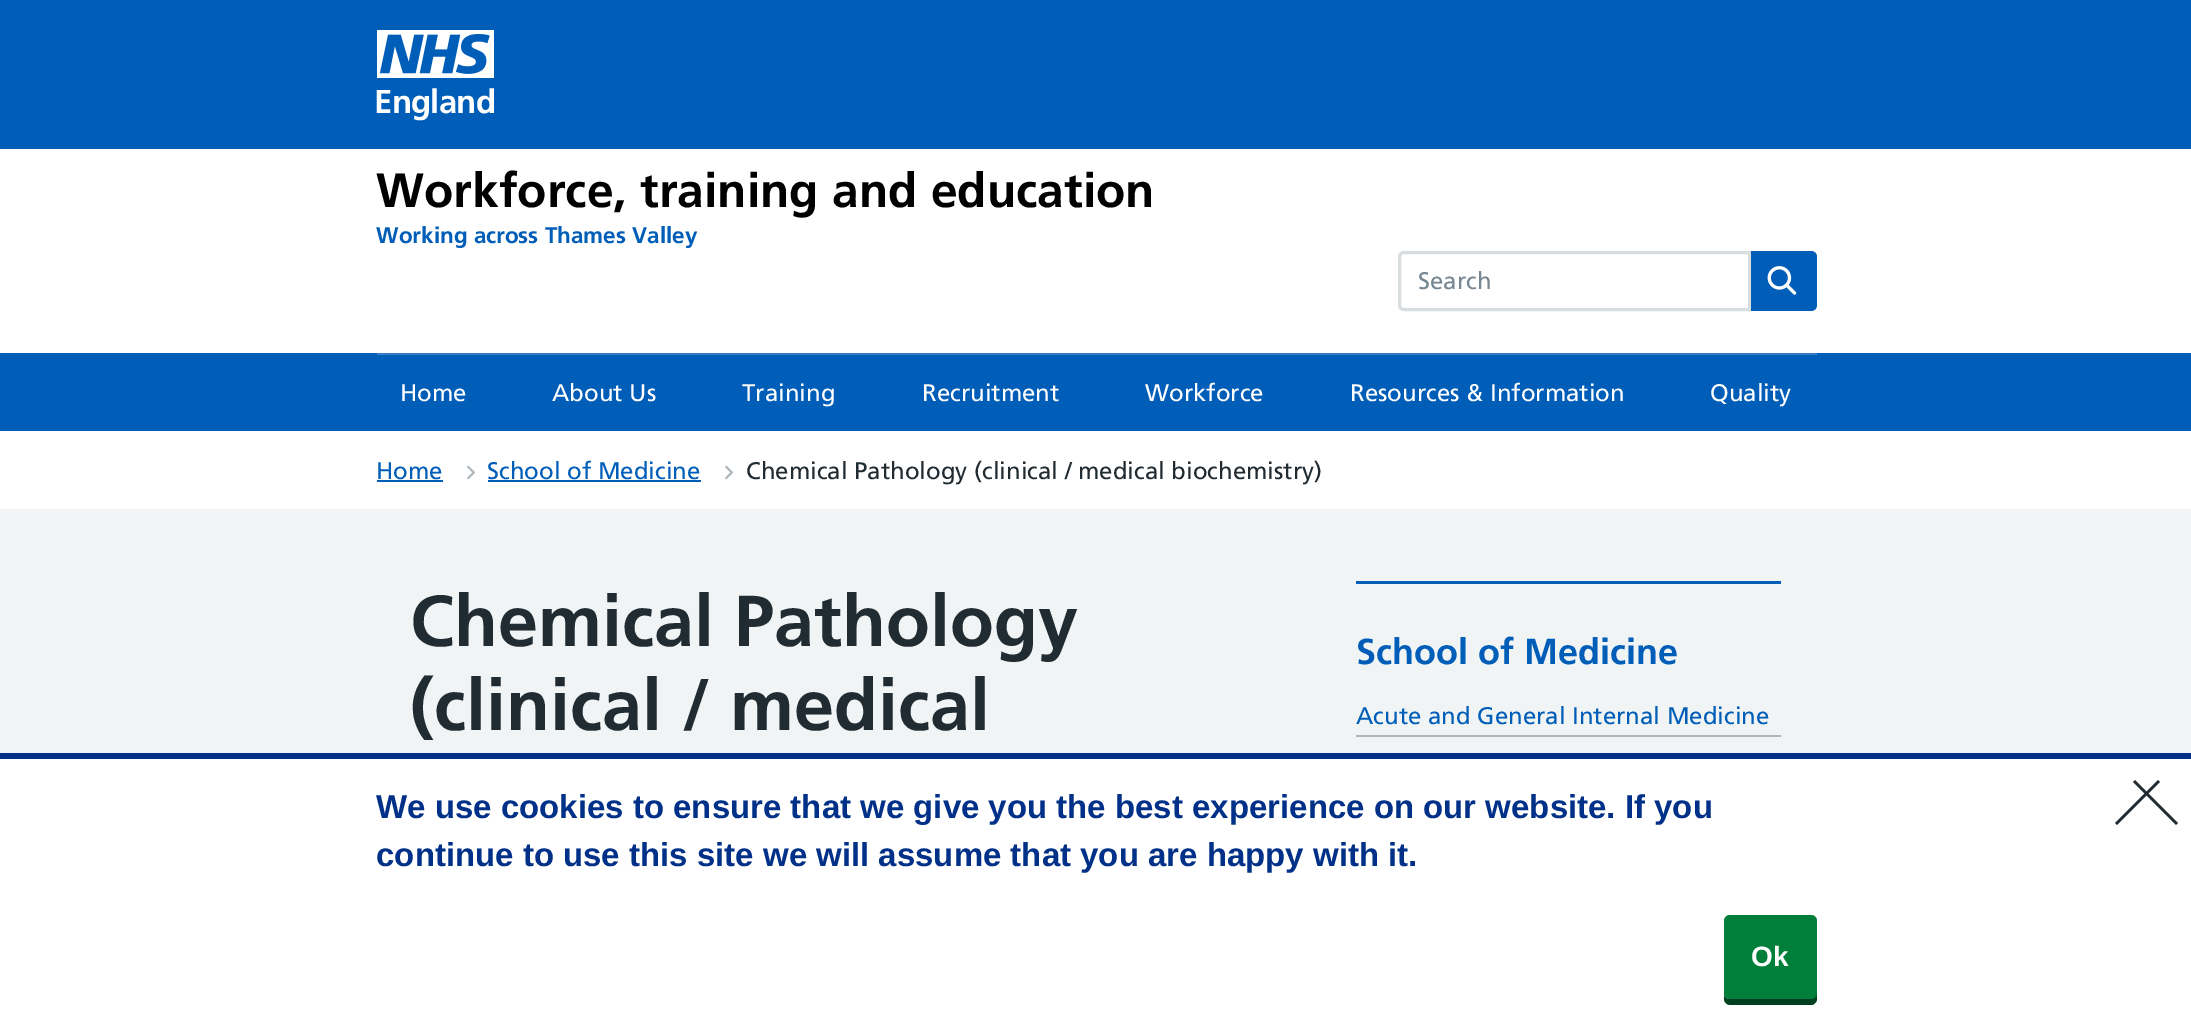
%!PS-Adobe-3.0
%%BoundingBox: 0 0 2191 1023
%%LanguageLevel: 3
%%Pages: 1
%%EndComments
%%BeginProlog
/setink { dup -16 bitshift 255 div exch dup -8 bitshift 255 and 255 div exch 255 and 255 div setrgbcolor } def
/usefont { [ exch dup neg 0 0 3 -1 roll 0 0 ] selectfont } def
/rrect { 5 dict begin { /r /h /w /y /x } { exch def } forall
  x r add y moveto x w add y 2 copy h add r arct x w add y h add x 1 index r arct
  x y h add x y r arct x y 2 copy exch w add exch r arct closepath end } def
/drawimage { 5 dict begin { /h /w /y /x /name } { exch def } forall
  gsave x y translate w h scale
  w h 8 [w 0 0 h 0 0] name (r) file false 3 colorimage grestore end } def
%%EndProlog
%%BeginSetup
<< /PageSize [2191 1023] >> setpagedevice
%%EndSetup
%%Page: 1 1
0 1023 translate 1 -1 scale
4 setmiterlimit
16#F0F4F5 setink
0 0 2191 1023 rectfill
16#005EB8 setink
0 0 2191 431 rectfill
(img1.raw) 377 30 117 48 drawimage
/Frutiger-Bold 33 usefont
16#FFFFFF setink
374 113 moveto -0.75 0 (England) ashow
0 149 2191 204 rectfill
/Frutiger-Bold 48 usefont
16#000000 setink
376 207 moveto (Workforce, training and education) show
/Frutiger-Bold 22.5 usefont
16#005EB8 setink
376 243 moveto (Working across Thames Valley) show
16#D8DDE0 setink
3 setlinewidth
1404 252.5 moveto 1749.5 252.5 lineto 1749.5 309.5 lineto 1404 309.5 lineto 1401.5 309.5 1399.5 307.5 1399.5 305 curveto 1399.5 257 lineto 1399.5 254.5 1401.5 252.5 1404 252.5 curveto closepath stroke
/Frutiger-Regular 24 usefont
16#768692 setink
1418 289 moveto (Search) show
16#005EB8 setink
1751 251 moveto 1811 251 lineto 1814.5 251 1817 253.5 1817 257 curveto 1817 305 lineto 1817 308.5 1814.5 311 1811 311 curveto 1751 311 lineto closepath fill
(img2.raw) 1767 266 30 29 drawimage
16#337EC6 setink
377 353 1440 2 rectfill
16#FFFFFF setink
[
    [(Home) 400 401]
    [(About Us) 552 401]
    [(Training) 742 401]
    [(Recruitment) 922 401]
    [(Workforce) 1145 401]
    [(Resources & Information) 1350 401]
    [(Quality) 1710 401]
] { aload pop moveto show } forall
0 431 2191 78 rectfill
(img3.raw) 467 465 8 15 drawimage
16#005EB8 setink
376 479 moveto (Home) show
377 480 66 2 rectfill
(img3.raw) 725 465 8 15 drawimage
487 479 moveto (School of Medicine) show
488 480 213 2 rectfill
16#212B32 setink
746 479 moveto (Chemical Pathology \(clinical / medical biochemistry\)) show
/Frutiger-Bold 72 usefont
410 646 moveto (Chemical Pathology) show
410 730 moveto (\(clinical / medical) show
16#005EB8 setink
1356 581 425 3 rectfill
/Frutiger-Bold 36 usefont
1356 664 moveto (School of Medicine) show
16#AEB7BD setink
1356 735 425 2 rectfill
/Frutiger-Regular 24 usefont
16#005EB8 setink
1356 724 moveto (Acute and General Internal Medicine) show
16#003087 setink
0 753 2191 6 rectfill
16#FFFFFF setink
0 759 2191 264 rectfill
/LiberationSans-Bold 33 usefont
16#003087 setink
376 818 moveto (We use cookies to ensure that we give you the best experience on our website. If you) show
376 866 moveto (continue to use this site we will assume that you are happy with it.) show
16#212B32 setink
2158 780 moveto 2160 782 lineto 2117 825 lineto 2115 823 lineto closepath fill
2133 782 moveto 2135 780 lineto 2178 823 lineto 2176 825 lineto closepath fill
16#00401E setink
1724 995 moveto 1724 999 lineto 1724 1002 1727 1005 1730 1005 curveto 1811 1005 lineto 1814 1005 1817 1002 1817 999 curveto 1817 927 lineto 1816 925 lineto 1816 993 lineto 1816 996 1814 999 1810 999 curveto 1730 999 lineto 1727 999 1725 998 1724 995 curveto closepath fill
16#007F3B setink
1724 915 93 84 6 rrect fill
/LiberationSans-Bold 28 usefont
16#FFFFFF setink
1751 966 moveto (Ok) show
showpage
%%EOF
